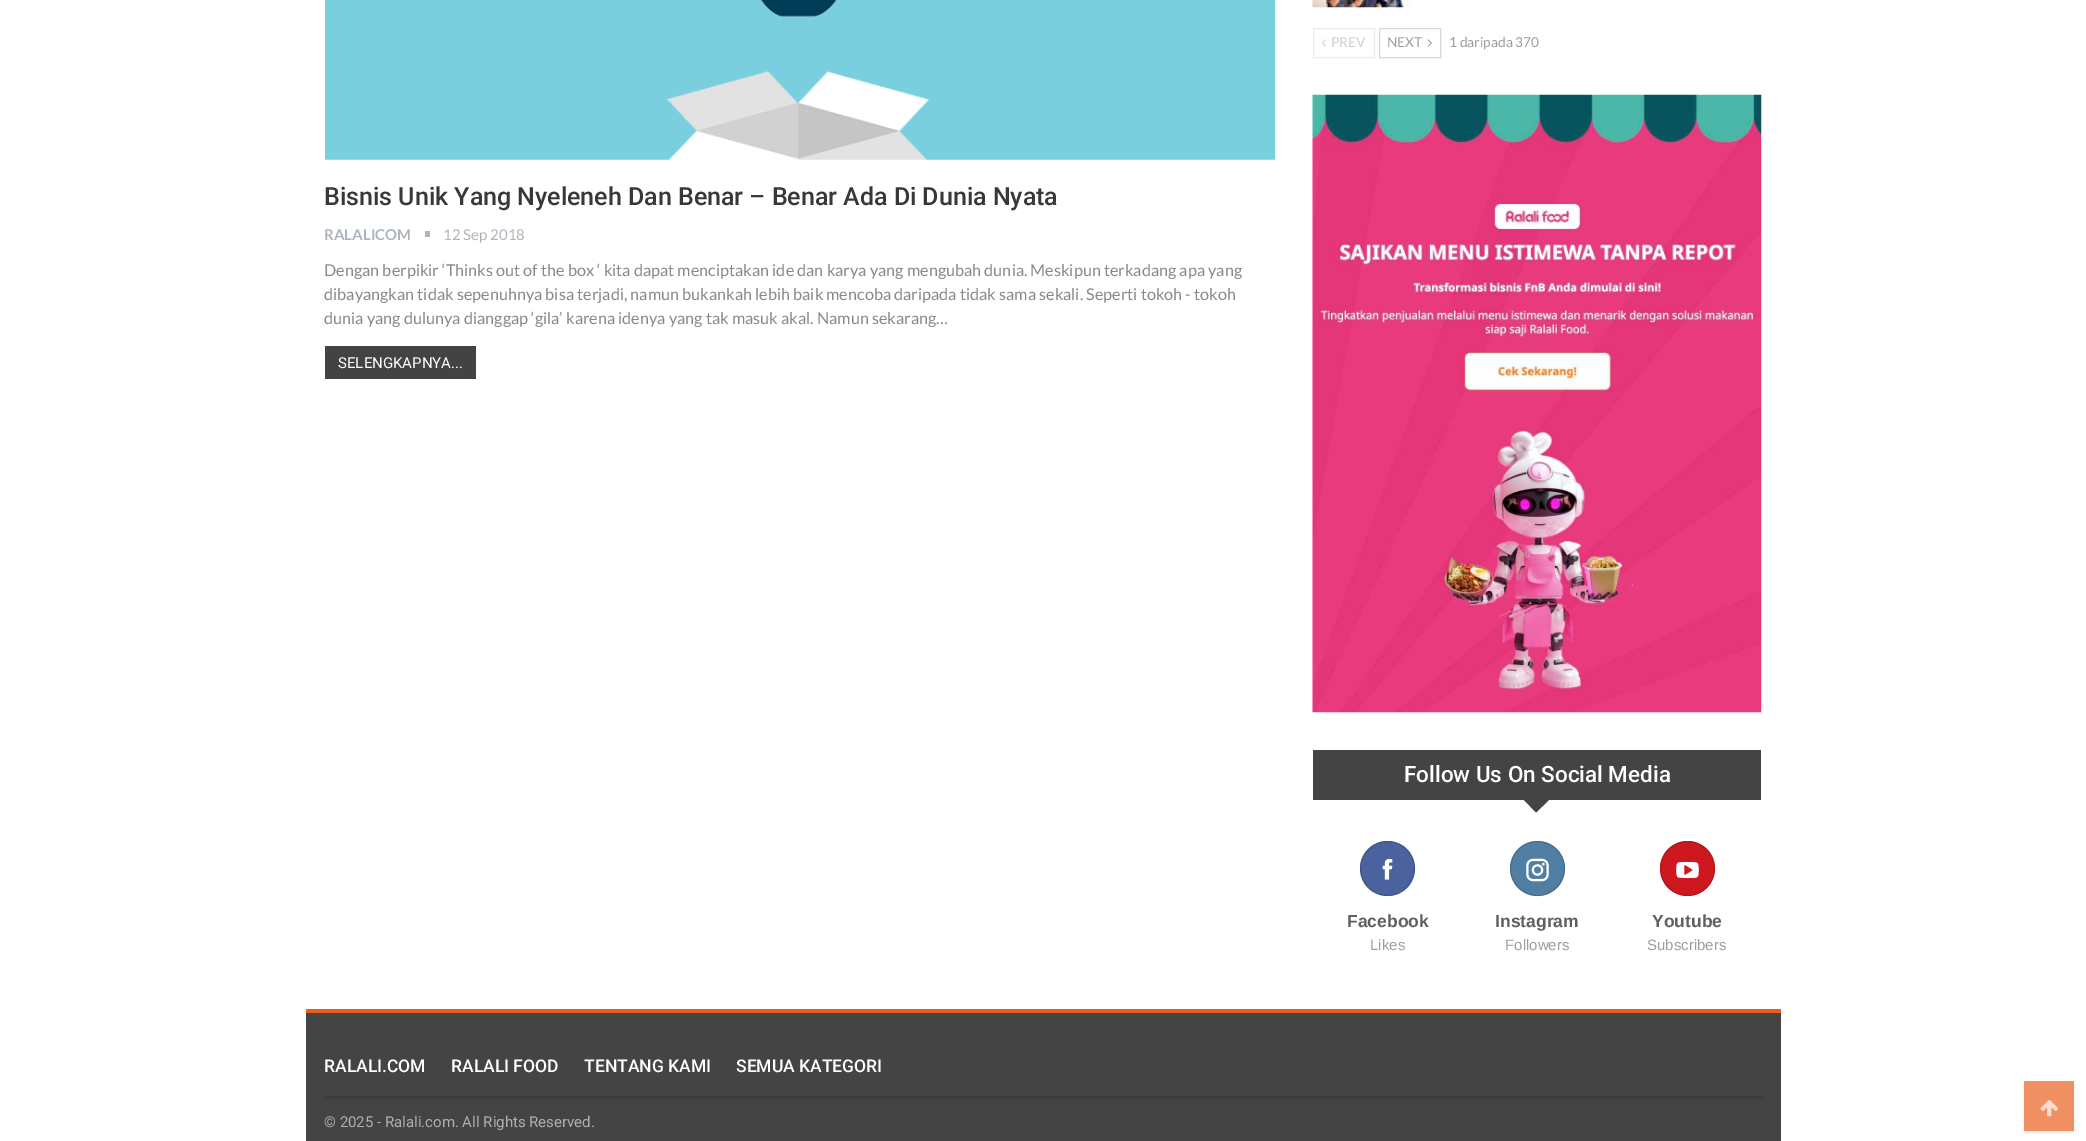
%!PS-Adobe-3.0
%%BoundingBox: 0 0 2086 1141
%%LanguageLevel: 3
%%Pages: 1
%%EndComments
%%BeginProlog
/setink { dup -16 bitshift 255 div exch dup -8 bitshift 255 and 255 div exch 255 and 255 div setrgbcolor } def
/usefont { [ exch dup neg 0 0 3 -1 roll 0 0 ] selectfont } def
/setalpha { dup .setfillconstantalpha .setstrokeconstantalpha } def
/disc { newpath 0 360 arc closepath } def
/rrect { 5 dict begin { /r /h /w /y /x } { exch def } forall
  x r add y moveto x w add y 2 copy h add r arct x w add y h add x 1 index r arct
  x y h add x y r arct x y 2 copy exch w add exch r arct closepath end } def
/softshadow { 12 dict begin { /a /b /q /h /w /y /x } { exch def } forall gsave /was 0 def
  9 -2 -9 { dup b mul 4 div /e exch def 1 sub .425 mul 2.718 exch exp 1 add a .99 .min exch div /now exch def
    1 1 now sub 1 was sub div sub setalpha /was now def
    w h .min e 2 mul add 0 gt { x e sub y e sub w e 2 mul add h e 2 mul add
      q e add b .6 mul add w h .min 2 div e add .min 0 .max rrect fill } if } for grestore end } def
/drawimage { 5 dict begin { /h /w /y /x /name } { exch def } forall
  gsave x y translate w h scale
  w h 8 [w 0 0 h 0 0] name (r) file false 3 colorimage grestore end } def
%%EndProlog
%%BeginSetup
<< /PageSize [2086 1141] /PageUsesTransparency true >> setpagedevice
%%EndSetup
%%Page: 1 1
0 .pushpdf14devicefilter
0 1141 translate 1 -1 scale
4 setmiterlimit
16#FFFFFF setink
0 0 2086 1141 rectfill
(img1.raw) 325 0 950 160 drawimage
/Roboto-Medium 25 usefont
16#383838 setink
324 205 moveto (Bisnis Unik Yang Nyeleneh Dan Benar – Benar Ada Di Dunia Nyata) show
/Lato-Bold 15 usefont
16#ADB5BD setink
324 240 moveto (RALALICOM) show
425 231 5 6 rectfill
/Lato-Regular 15 usefont
443 240 moveto (12 Sep 2018) show
/Lato-Regular 16.25 usefont
16#888888 setink
[
    [(Dengan berpikir ‘Thinks out of the box ‘ kita dapat menciptakan ide dan karya yang mengubah dunia. Meskipun terkadang apa yang) 324 276]
    [(dibayangkan tidak sepenuhnya bisa terjadi, namun bukankah lebih baik mencoba daripada tidak sama sekali. Seperti tokoh - tokoh) 324 300]
    [(dunia yang dulunya dianggap ‘gila’ karena idenya yang tak masuk akal. Namun sekarang…) 324 324]
] { aload pop moveto show } forall
16#434343 setink
325 346 151 33 rectfill
/Roboto-Regular 15 usefont
16#FFFFFF setink
338 368 moveto (SELENGKAPNYA...) show
(img2.raw) 1312 0 99 8 drawimage
16#ECECEC setink
1313.5 28.5 61 29 rectstroke
(img3.raw) 1321 39 5 8 drawimage
/Lato-Regular 13.75 usefont
16#CFCFCF setink
1331 47 moveto (PREV) show
16#D8D8D8 setink
1379.5 28.5 61 29 rectstroke
16#9D9D9D setink
1387 47 moveto (NEXT) show
(img4.raw) 1427 39 5 8 drawimage
1449 47 moveto (1 daripada 370) show
(img5.raw) 1312 94 450 619 drawimage
16#444444 setink
1313 750 448 50 rectfill
/Roboto-Medium 22.5 usefont
16#FFFFFF setink
1404 782 moveto (Follow Us On Social Media) show
16#444444 setink
1524 800 moveto 1549 800 lineto 1536 812.5 lineto closepath fill
16#4A639F setink
1387.5 868.5 27.5 disc fill
0.15 setalpha
16#000000 setink
1387.5 868.5 27 disc stroke
1 setalpha
(img6.raw) 1382 859 11 21 drawimage
/LiberationSans-Bold 17.5 usefont
16#5F5F5F setink
1347 927 moveto (Facebook) show
/LiberationSans-Regular 15 usefont
16#9D9D9D setink
1370 950 moveto (Likes) show
16#517FA4 setink
1537.5 868.5 27.5 disc fill
0.15 setalpha
16#000000 setink
1537.5 868.5 27 disc stroke
1 setalpha
(img7.raw) 1526 858 23 24 drawimage
/LiberationSans-Bold 17.5 usefont
16#5F5F5F setink
1495 927 moveto (Instagram) show
/LiberationSans-Regular 15 usefont
16#9D9D9D setink
1505 950 moveto (Followers) show
16#CC181E setink
1687.5 868.5 27.5 disc fill
0.15 setalpha
16#000000 setink
1687.5 868.5 27 disc stroke
1 setalpha
(img8.raw) 1676 861 23 18 drawimage
/LiberationSans-Bold 17.5 usefont
16#5F5F5F setink
1652 927 moveto (Youtube) show
/LiberationSans-Regular 15 usefont
16#9D9D9D setink
1647 950 moveto (Subscribers) show
[
    [306 1013 1475 128 16#444444]
    [306 1009 1475 4 16#EA5F1E]
    [325 1096 1438 3 16#3C3C3C]
] { aload pop setink rectfill } forall
/Roboto-Medium 17.5 usefont
16#FFFFFF setink
[
    [(RALALI.COM) 324 1072]
    [(RALALI FOOD) 451 1072]
    [(TENTANG KAMI) 584 1072]
    [(SEMUA KATEGORI) 736 1072]
] { aload pop moveto show } forall
/Roboto-Regular 15 usefont
16#AFAFAF setink
324 1127 moveto (© 2025 - Ralali.com. All Rights Reserved.) show
16#4D4D4D setink
2024 1083 50 50 0 1 0.09 softshadow
16#F08F62 setink
2024 1081 50 50 rectfill
(img9.raw) 2040 1100 18 17 drawimage
.poppdf14devicefilter showpage
%%EOF
